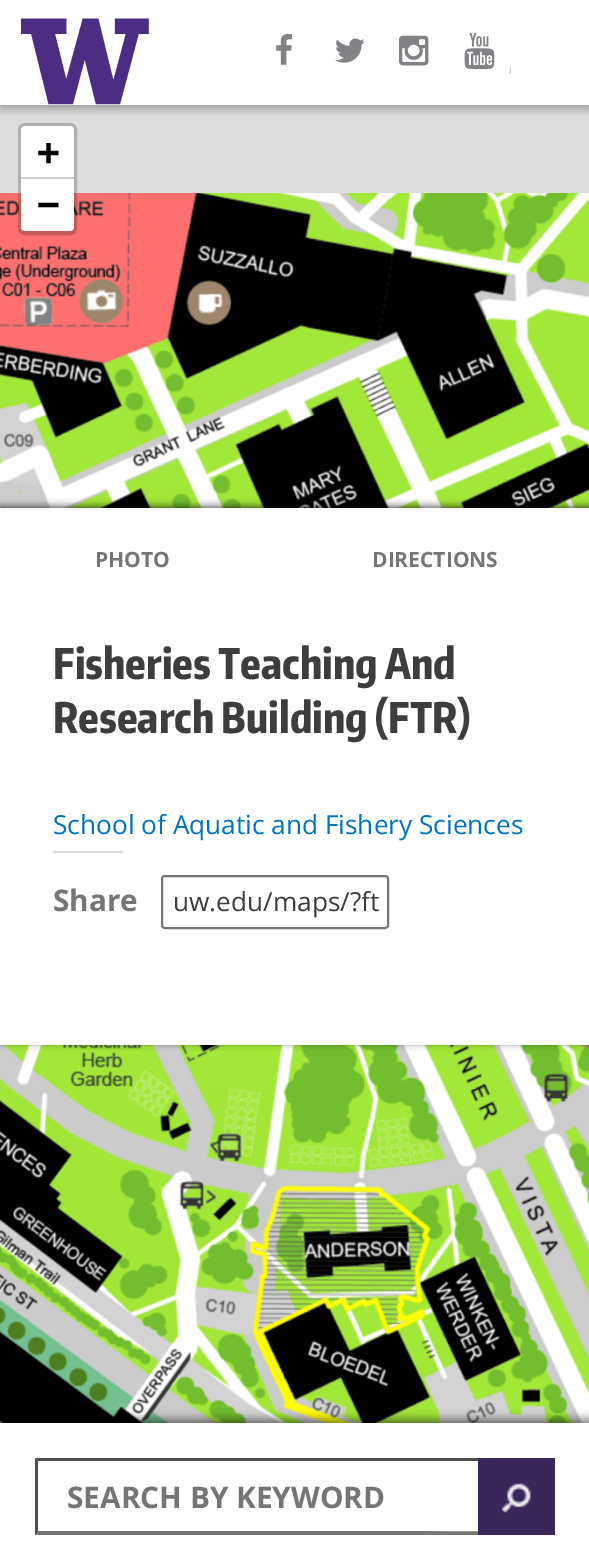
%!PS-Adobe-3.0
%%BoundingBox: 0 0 589 1542
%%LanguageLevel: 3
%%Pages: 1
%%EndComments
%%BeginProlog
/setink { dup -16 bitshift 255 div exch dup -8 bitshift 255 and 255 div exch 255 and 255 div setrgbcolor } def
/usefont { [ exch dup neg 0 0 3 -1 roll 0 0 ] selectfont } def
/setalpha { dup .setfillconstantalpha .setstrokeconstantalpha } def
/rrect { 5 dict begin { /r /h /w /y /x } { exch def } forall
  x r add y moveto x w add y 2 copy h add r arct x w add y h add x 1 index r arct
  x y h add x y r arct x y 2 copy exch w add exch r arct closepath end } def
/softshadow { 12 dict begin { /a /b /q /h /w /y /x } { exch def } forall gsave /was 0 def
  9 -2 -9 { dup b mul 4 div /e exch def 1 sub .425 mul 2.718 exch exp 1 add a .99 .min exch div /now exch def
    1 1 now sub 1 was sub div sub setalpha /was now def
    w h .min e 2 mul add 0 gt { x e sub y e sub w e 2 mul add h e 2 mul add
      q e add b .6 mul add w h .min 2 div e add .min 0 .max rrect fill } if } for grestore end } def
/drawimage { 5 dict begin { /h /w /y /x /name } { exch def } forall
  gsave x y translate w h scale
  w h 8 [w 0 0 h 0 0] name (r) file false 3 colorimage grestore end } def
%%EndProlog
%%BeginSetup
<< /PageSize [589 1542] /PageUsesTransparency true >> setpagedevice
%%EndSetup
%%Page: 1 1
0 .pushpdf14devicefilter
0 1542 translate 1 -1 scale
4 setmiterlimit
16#FFFFFF setink
0 0 589 1542 rectfill
16#DDDDDD setink
0 105 589 88 rectfill
(img6.raw) 0 193 287 315 drawimage
0.2 setalpha
16#000000 setink
4 setlinewidth
20 125 55 108 5 rrect stroke
gsave
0 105 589 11 rectclip
1 setalpha
0 4 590 105 0 4.5 0.3 softshadow
grestore
1 setalpha
(img1.raw) 21 18 128 87 drawimage
(img2.raw) 276 34 16 31 drawimage
(img3.raw) 335 38 30 25 drawimage
(img4.raw) 399 35 30 31 drawimage
(img5.raw) 464 33 47 41 drawimage
16#FFFFFF setink
25 126 moveto 70 126 lineto 72 126 74 128 74 130 curveto 74 179 lineto 21 179 lineto 21 130 lineto 21 128 23 126 25 126 curveto closepath fill
16#CCCCCC setink
21 177 53 2 rectfill
/DejaVuSansMono-Bold 38 usefont
16#000000 setink
37 165 moveto (+) show
16#FFFFFF setink
21 179 moveto 74 179 lineto 74 227 lineto 74 229 72 231 70 231 curveto 25 231 lineto 23 231 21 229 21 227 curveto closepath fill
16#000000 setink
37 217 moveto (−) show
(img7.raw) 287 193 302 315 drawimage
(img8.raw) 0 1045 287 44 drawimage
(img9.raw) 287 1045 302 44 drawimage
(img10.raw) 0 1089 287 334 drawimage
(img11.raw) 287 1089 302 334 drawimage
0 506 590 537 0 3.5 0.6 softshadow
16#FFFFFF setink
0 508 589 537 rectfill
/OpenSans-Bold 21 usefont
16#757575 setink
95 567 moveto (PHOTO) show
372 567 moveto (DIRECTIONS) show
16#000000 setink
0 1419 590 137 0 4.5 0.5 softshadow
16#FFFFFF setink
0 1423 589 119 rectfill
16#4F4F4F setink
35 1458 moveto 555 1458 lineto 551 1461 lineto 38 1461 lineto closepath fill
16#767676 setink
555 1535 moveto 35 1535 lineto 38 1531 lineto 551 1531 lineto closepath fill
16#4F4F4F setink
35 1535 moveto 35 1458 lineto 38 1461 lineto 38 1531 lineto closepath fill
/OpenSans-Bold 29.75 usefont
16#757575 setink
67 1508 moveto (SEARCH BY KEYWORD) show
16#39275B setink
478 1458 77 77 rectfill
(img12.raw) 501 1483 30 30 drawimage
(img13.raw) 426 1531 52 1 drawimage
/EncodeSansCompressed-ExtraBold 41.75 usefont
16#3D3D3D setink
53 679 moveto (Fisheries Teaching And) show
53 733 moveto (Research Building \(FTR\)) show
/OpenSans-Regular 26.25 usefont
16#0074BB setink
53 834 moveto (School of Aquatic and Fishery Sciences) show
16#DDDDDD setink
53 851 70 2 rectfill
/OpenSans-Bold 29.75 usefont
16#757575 setink
53 911 moveto (Share) show
16#767676 setink
2 setlinewidth
162 876 226 52 3 rrect stroke
/OpenSans-Regular 26.25 usefont
16#3D3D3D setink
173 911 moveto (uw.edu/maps/?ft) show
.poppdf14devicefilter showpage
%%EOF
